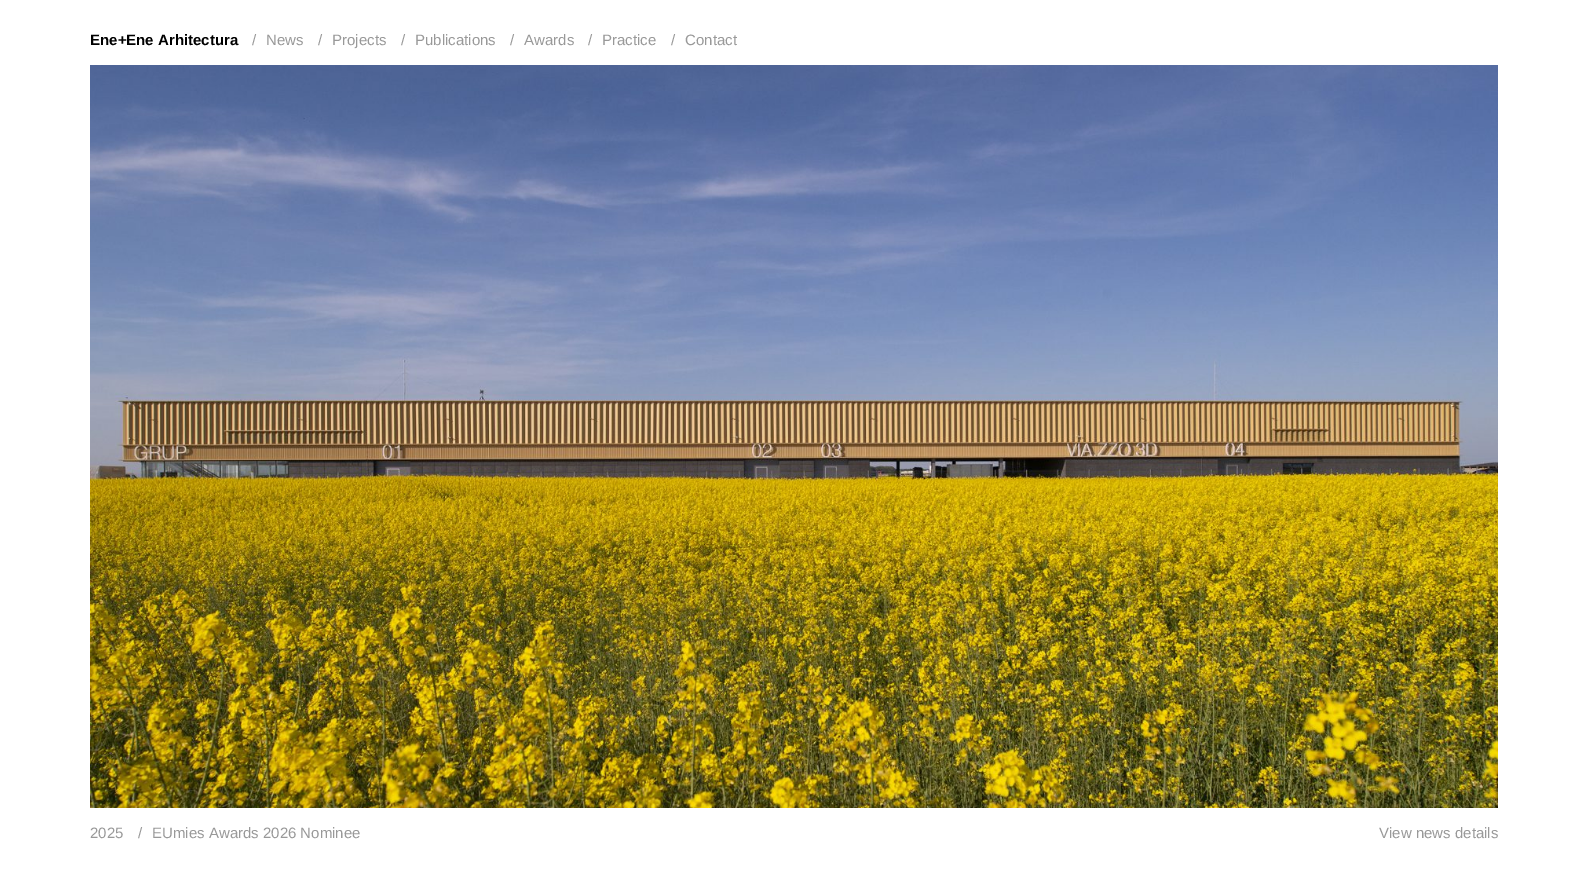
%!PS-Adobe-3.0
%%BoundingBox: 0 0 1588 873
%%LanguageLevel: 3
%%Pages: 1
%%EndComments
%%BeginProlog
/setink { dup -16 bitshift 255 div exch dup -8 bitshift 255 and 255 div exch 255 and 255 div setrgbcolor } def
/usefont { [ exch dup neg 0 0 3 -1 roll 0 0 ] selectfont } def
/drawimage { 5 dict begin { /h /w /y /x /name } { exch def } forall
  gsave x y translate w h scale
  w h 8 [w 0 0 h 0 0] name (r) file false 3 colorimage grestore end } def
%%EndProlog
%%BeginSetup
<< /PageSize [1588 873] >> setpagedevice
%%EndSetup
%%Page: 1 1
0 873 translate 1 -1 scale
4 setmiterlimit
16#FFFFFF setink
0 0 1588 873 rectfill
/Arimo-Bold 15 usefont
16#000000 setink
90 45 moveto (Ene+Ene Arhitectura) show
/Arimo-Regular 15 usefont
16#999999 setink
[
    [(/) 252 45]
    [(News) 266 45]
    [(/) 318 45]
    [(Projects) 332 45]
    [(/) 401 45]
    [(Publications) 415 45]
    [(/) 510 45]
    [(Awards) 524 45]
    [(/) 588 45]
    [(Practice) 602 45]
    [(/) 671 45]
    [(Contact) 685 45]
] { aload pop moveto show } forall
(img1.raw) 90 65 1408 743 drawimage
[
    [(2025) 90 838]
    [(/) 138 838]
    [(EUmies Awards 2026 Nominee) 152 838]
    [(View news details) 1379 838]
] { aload pop moveto show } forall
showpage
%%EOF
